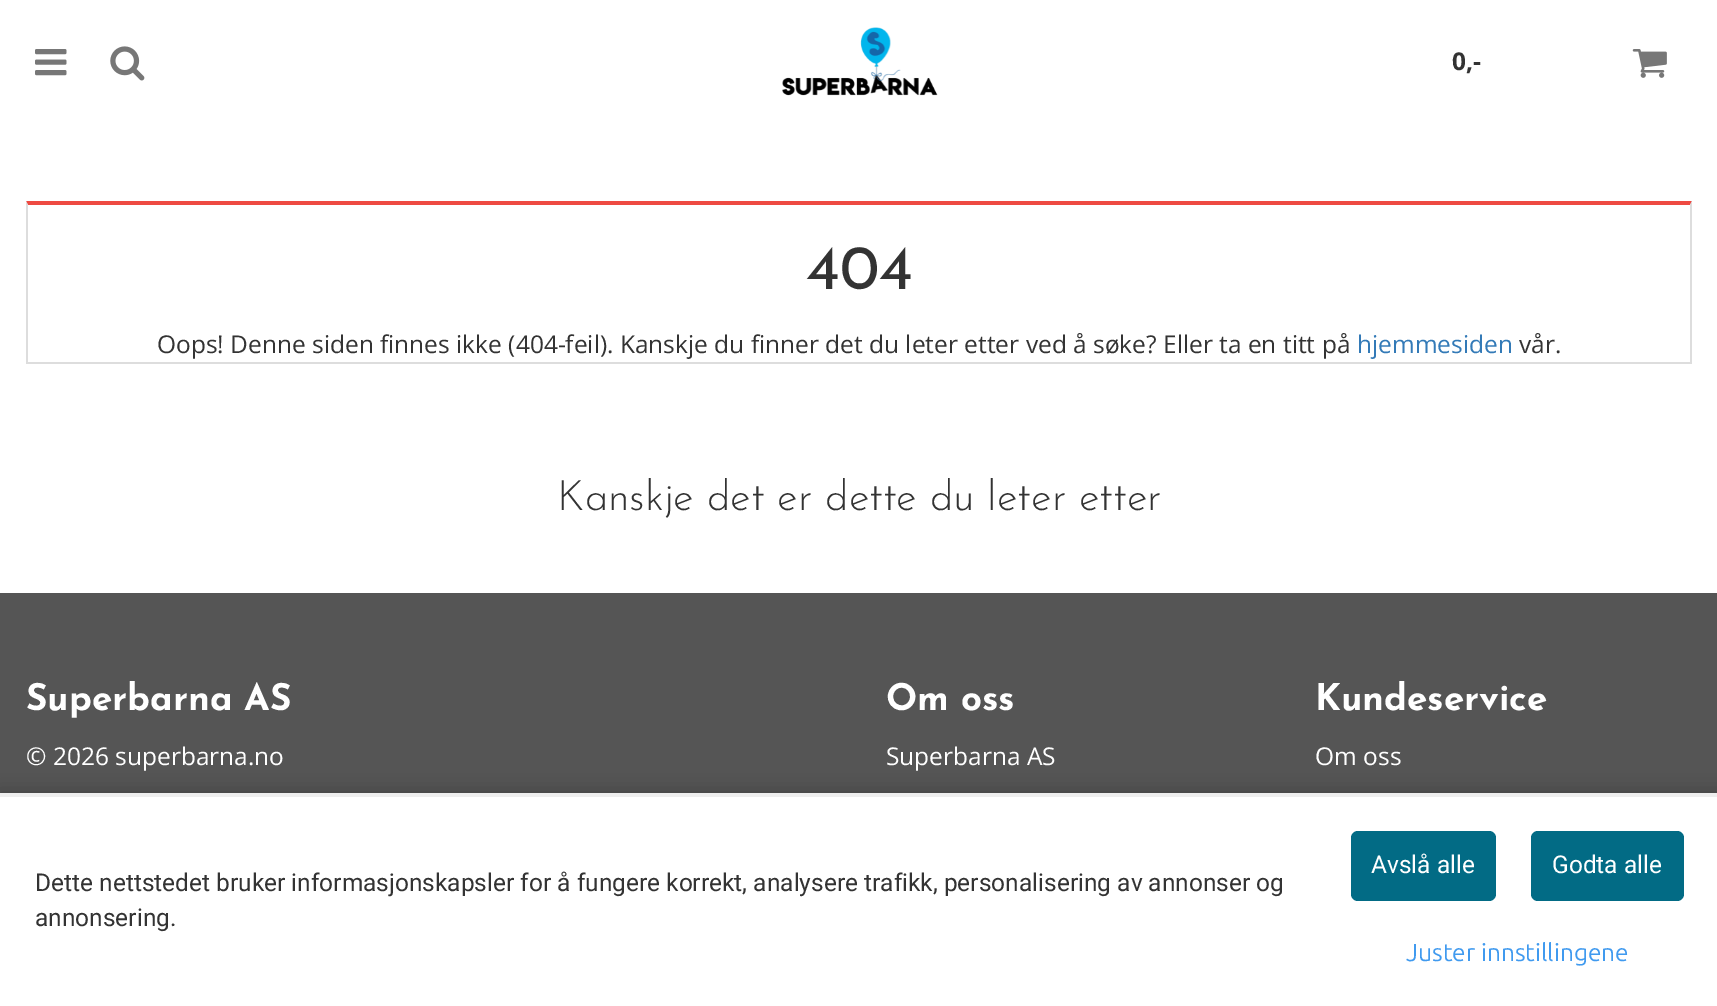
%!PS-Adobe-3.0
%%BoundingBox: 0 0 1717 1006
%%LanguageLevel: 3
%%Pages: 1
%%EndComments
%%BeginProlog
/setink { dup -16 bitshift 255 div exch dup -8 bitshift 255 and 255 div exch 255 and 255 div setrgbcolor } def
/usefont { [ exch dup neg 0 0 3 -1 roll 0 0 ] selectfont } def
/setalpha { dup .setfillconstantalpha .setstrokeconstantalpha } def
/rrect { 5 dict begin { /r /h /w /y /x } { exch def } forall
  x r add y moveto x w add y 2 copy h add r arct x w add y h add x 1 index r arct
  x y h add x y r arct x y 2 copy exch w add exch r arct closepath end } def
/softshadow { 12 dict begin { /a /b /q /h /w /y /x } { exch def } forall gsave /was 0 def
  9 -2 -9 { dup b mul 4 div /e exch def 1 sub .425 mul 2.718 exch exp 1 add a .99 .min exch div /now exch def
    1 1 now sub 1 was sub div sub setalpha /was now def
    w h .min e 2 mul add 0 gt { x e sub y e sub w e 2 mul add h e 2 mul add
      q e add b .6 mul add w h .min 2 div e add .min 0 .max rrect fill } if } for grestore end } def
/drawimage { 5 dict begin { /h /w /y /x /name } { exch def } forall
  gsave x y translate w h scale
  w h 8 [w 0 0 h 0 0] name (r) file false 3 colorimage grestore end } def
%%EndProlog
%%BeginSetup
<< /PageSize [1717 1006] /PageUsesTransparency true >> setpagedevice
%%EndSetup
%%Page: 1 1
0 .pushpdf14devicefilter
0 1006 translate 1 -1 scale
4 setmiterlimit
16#FFFFFF setink
0 0 1717 1006 rectfill
(img1.raw) 35 49 32 27 drawimage
(img2.raw) 110 46 35 35 drawimage
(img3.raw) 782 27 156 69 drawimage
/OpenSans-Bold 24.5 usefont
16#333333 setink
1452 70 moveto (0,-) show
(img4.raw) 1632 49 35 29 drawimage
16#EE4A42 setink
26 201 moveto 1692 201 lineto 1690 205 lineto 28 205 lineto closepath fill
16#DDDDDD setink
1692 201 moveto 1692 364 lineto 1690 362 lineto 1690 205 lineto closepath fill
26 362 1666 2 rectfill
26 364 moveto 26 201 lineto 28 205 lineto 28 362 lineto closepath fill
/JosefinSans-Regular 63 usefont
16#333333 setink
806 289 moveto (404) show
/OpenSans-Regular 24.5 usefont
157 353 moveto (Oops! Denne siden finnes ikke \(404-feil\). Kanskje du finner det du leter etter ved å søke? Eller ta en titt på) show
16#337AB7 setink
1357 353 moveto (hjemmesiden) show
16#333333 setink
1519 353 moveto (vår.) show
/JosefinSans-Light 42 usefont
557 510 moveto (Kanskje det er dette du leter etter) show
16#555555 setink
0 593 1717 200 rectfill
/JosefinSans-Bold 36.75 usefont
16#FFFFFF setink
26 710 moveto (Superbarna AS) show
/OpenSans-Regular 24.5 usefont
26 765 moveto (© 2026 superbarna.no) show
/JosefinSans-Bold 36.75 usefont
886 710 moveto (Om oss) show
/OpenSans-Regular 24.5 usefont
886 765 moveto (Superbarna AS) show
/JosefinSans-Bold 36.75 usefont
1315 710 moveto (Kundeservice) show
/OpenSans-Regular 24.5 usefont
1315 765 moveto (Om oss) show
16#000000 setink
0 793 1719 213 0 9 0.25 softshadow
16#FFFFFF setink
0 797 1717 209 rectfill
16#EEEEEE setink
0 793 1717 4 rectfill
/Roboto-Regular 24.5 usefont
16#333333 setink
35 891 moveto (Dette nettstedet bruker informasjonskapsler for å fungere korrekt, analysere trafikk, personalisering av annonser og) show
35 926 moveto (annonsering.) show
16#026B85 setink
1351 831 145 70 7 rrect fill
16#FFFFFF setink
1371 873 moveto (Avslå alle) show
16#026B85 setink
1531 831 153 70 7 rrect fill
16#FFFFFF setink
1552 873 moveto (Godta alle) show
/Ubuntu-Regular 24.5 usefont
16#409AEF setink
1406 961 moveto (Juster innstillingene) show
.poppdf14devicefilter showpage
%%EOF
